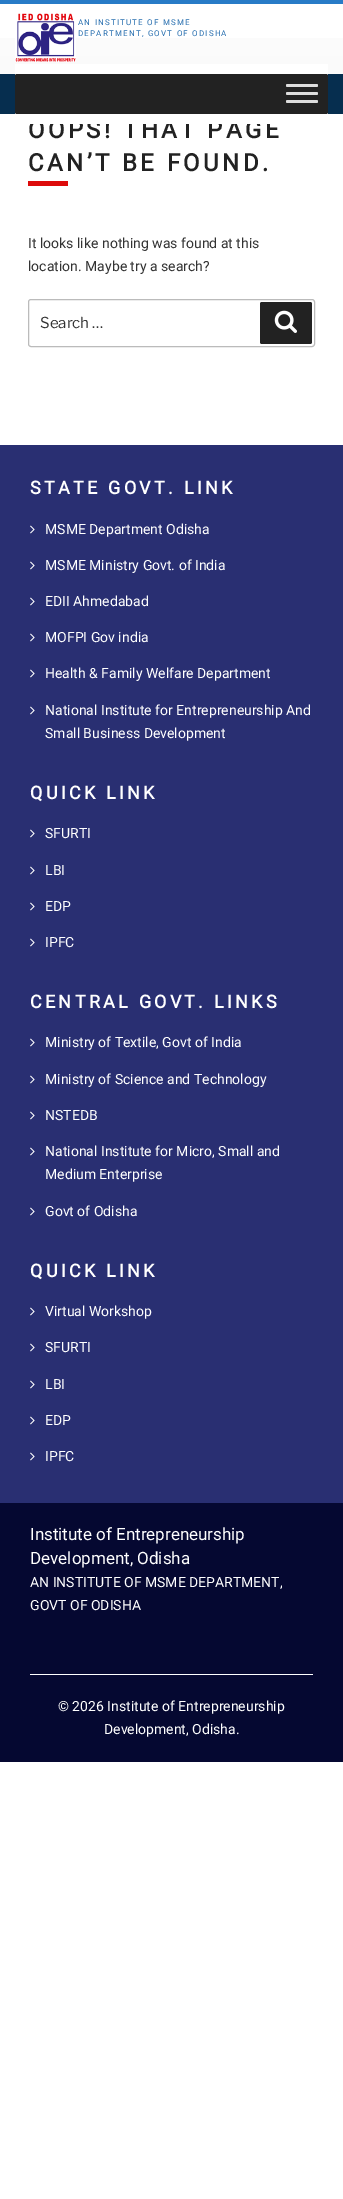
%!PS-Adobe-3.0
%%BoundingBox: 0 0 343 2199
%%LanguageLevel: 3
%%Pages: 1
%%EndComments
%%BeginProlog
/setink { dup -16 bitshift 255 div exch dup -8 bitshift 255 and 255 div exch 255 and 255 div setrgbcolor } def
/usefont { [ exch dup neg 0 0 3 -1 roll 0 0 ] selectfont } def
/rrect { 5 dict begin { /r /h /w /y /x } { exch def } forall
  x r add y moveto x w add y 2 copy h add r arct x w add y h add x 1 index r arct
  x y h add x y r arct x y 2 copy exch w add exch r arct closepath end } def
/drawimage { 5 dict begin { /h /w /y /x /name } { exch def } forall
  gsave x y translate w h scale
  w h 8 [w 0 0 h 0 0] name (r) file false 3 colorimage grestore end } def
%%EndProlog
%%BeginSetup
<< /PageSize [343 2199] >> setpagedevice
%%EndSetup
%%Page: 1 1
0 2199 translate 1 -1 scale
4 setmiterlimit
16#FFFFFF setink
0 0 343 2199 rectfill
gsave 0 38 moveto 343 38 lineto 343 74 lineto 0 74 lineto closepath clip newpath
<< /ShadingType 2 /ColorSpace /DeviceRGB /Coords [172 4 172 84] /Extend [true true] /Function << /FunctionType 3 /Domain [0 1] /Functions [<< /FunctionType 2 /Domain [0 1] /C0 [1 1 1] /C1 [0.98 0.98 0.98] /N 1 >> << /FunctionType 2 /Domain [0 1] /C0 [0.98 0.98 0.98] /C1 [1 1 1] /N 1 >>] /Bounds [0.85] /Encode [0 1 0 1] >> >> shfill grestore
16#287BC7 setink
0 0 343 4 rectfill
(img1.raw) 15 13 61 49 drawimage
/Roboto-Regular 8 usefont
16#246CAE setink
78 25 moveto 1.2 0 (AN INSTITUTE OF MSME) ashow
78 36 moveto 1.2 0 (DEPARTMENT, GOVT OF ODISHA) ashow
16#062E4F setink
0 74 343 40 rectfill
/Roboto-Bold 24 usefont
16#222222 setink
28 138 moveto 3.4 0 (OOPS! THAT PAGE) ashow
16#FFFFFF setink
15 64 313 60 rectfill
16#222222 setink
15 74 313 40 2 rrect fill
16#DDDDDD setink
286 84 32 3 1.5 rrect fill
286 92 32 3 1.5 rrect fill
286 100 32 3 1.5 rrect fill
16#222222 setink
28 171 moveto 3.4 0 (CAN’T BE FOUND.) ashow
16#DD0B0B setink
28 181 40 5 rectfill
/Roboto-Regular 14 usefont
16#333333 setink
28 248 moveto (It looks like nothing was found at this) show
28 271 moveto (location. Maybe try a search?) show
16#BBBBBB setink
28.5 299.5 286 47 2.5 rrect stroke
/LibreFranklin-Thin 15 usefont
16#333333 setink
40 328 moveto (Search …) show
16#222222 setink
260 302 52 42 2 rrect fill
(img2.raw) 274 310 23 23 drawimage
16#292F72 setink
0 445 343 1058 rectfill
/Roboto-Bold 18 usefont
16#FFFFFF setink
30 494 moveto 3.25 0 (STATE GOVT. LINK) ashow
(img3.raw) 30 525 5 9 drawimage
/Roboto-Regular 14 usefont
45 534 moveto (MSME Department Odisha) show
(img3.raw) 30 561 5 9 drawimage
45 570 moveto (MSME Ministry Govt. of India) show
(img3.raw) 30 597 5 9 drawimage
45 606 moveto (EDII Ahmedabad) show
(img3.raw) 30 633 5 9 drawimage
45 642 moveto (MOFPI Gov india) show
(img3.raw) 30 669 5 9 drawimage
45 678 moveto (Health & Family Welfare Department) show
(img3.raw) 30 706 5 9 drawimage
45 715 moveto (National Institute for Entrepreneurship And) show
45 738 moveto (Small Business Development) show
/Roboto-Bold 18 usefont
30 799 moveto 3.25 0 (QUICK LINK) ashow
(img3.raw) 30 829 5 9 drawimage
/Roboto-Regular 14 usefont
45 838 moveto (SFURTI) show
(img3.raw) 30 866 5 9 drawimage
45 875 moveto (LBI) show
(img3.raw) 30 902 5 9 drawimage
45 911 moveto (EDP) show
(img3.raw) 30 938 5 9 drawimage
45 947 moveto (IPFC) show
/Roboto-Bold 18 usefont
30 1008 moveto 3.25 0 (CENTRAL GOVT. LINKS) ashow
(img3.raw) 30 1038 5 9 drawimage
/Roboto-Regular 14 usefont
45 1047 moveto (Ministry of Textile, Govt of India) show
(img3.raw) 30 1075 5 9 drawimage
45 1084 moveto (Ministry of Science and Technology) show
(img3.raw) 30 1111 5 9 drawimage
45 1120 moveto (NSTEDB) show
(img3.raw) 30 1147 5 9 drawimage
45 1156 moveto (National Institute for Micro, Small and) show
45 1179 moveto (Medium Enterprise) show
(img3.raw) 30 1207 5 9 drawimage
45 1216 moveto (Govt of Odisha) show
/Roboto-Bold 18 usefont
30 1277 moveto 3.25 0 (QUICK LINK) ashow
(img3.raw) 30 1307 5 9 drawimage
/Roboto-Regular 14 usefont
45 1316 moveto (Virtual Workshop) show
(img3.raw) 30 1343 5 9 drawimage
45 1352 moveto (SFURTI) show
(img3.raw) 30 1380 5 9 drawimage
45 1389 moveto (LBI) show
(img3.raw) 30 1416 5 9 drawimage
45 1425 moveto (EDP) show
(img3.raw) 30 1452 5 9 drawimage
45 1461 moveto (IPFC) show
16#050831 setink
0 1503 343 259 rectfill
/Roboto-Regular 17 usefont
16#FFFFFF setink
30 1540 moveto (Institute of Entrepreneurship) show
30 1564 moveto (Development, Odisha) show
/Roboto-Regular 14 usefont
30 1587 moveto (AN INSTITUTE OF MSME DEPARTMENT,) show
30 1610 moveto (GOVT OF ODISHA) show
30 1674 283 1 rectfill
58 1711 moveto (© 2026 Institute of Entrepreneurship) show
104 1734 moveto (Development, Odisha.) show
showpage
%%EOF
